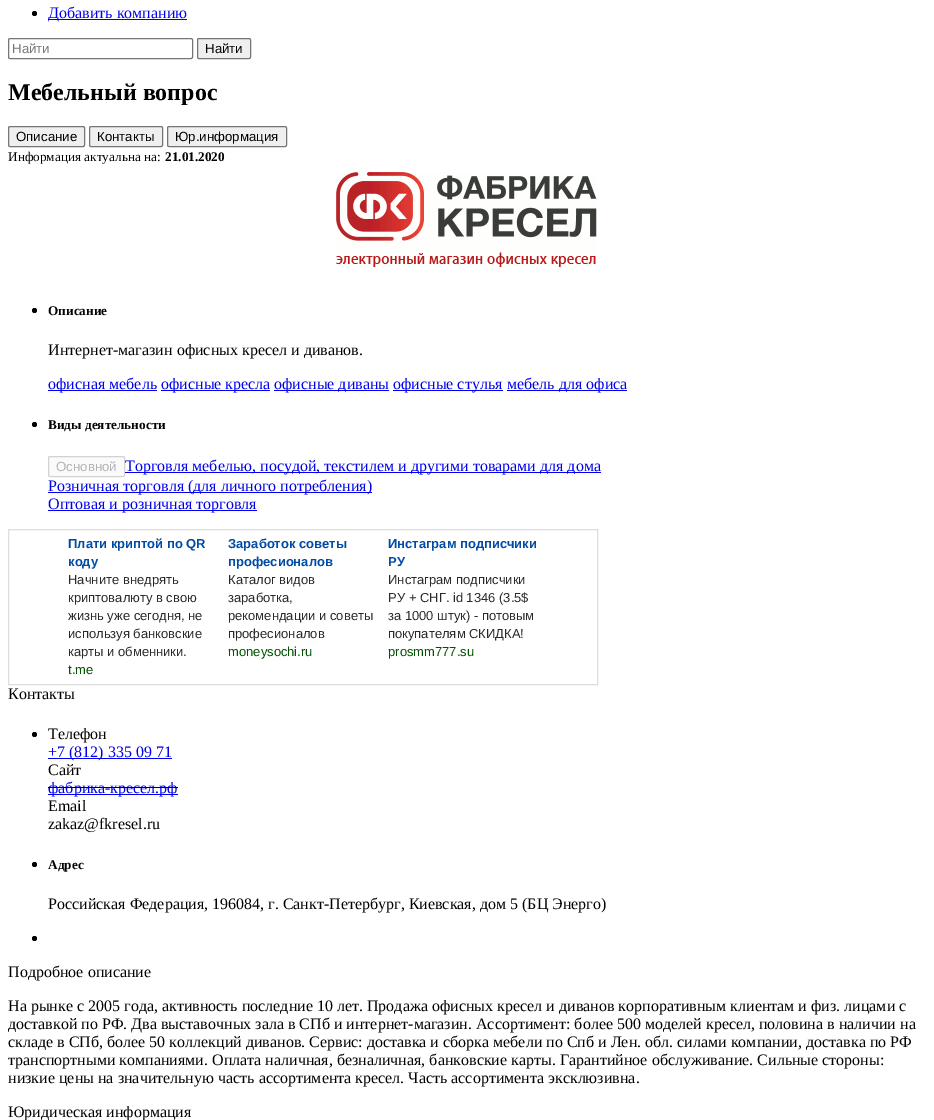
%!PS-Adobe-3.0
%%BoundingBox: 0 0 934 1120
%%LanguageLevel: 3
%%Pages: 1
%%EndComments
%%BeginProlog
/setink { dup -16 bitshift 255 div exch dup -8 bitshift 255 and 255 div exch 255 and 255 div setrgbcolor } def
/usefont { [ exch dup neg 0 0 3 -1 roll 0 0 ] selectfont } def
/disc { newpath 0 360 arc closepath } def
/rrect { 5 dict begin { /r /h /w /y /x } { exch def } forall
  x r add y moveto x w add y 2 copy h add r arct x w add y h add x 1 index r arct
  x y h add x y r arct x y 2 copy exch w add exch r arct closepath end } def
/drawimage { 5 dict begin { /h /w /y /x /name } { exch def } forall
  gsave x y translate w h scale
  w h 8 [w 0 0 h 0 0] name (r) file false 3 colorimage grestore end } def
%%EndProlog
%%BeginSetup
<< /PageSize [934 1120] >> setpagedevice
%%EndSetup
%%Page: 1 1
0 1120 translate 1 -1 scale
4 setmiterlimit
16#FFFFFF setink
0 0 934 1120 rectfill
16#000000 setink
34.5 13.5 2.5 disc fill
16#0000EE setink
48 19 139 1 rectfill
/LiberationSerif-Regular 16 usefont
48 18 moveto (Добавить компанию) show
16#767676 setink
8.5 38.5 184 20 1.5 rrect stroke
/LiberationSans-Regular 13.25 usefont
16#757575 setink
12 53 moveto (Найти) show
16#EFEFEF setink
197.5 38.5 53 20 1.5 rrect gsave fill grestore
16#767676 setink
stroke
16#000000 setink
205 53 moveto (Найти) show
/LiberationSerif-Bold 24 usefont
8 100 moveto (Мебельный вопрос) show
16#EFEFEF setink
8.5 126.5 76 20 1.5 rrect gsave fill grestore
16#767676 setink
stroke
/LiberationSans-Regular 13.25 usefont
16#000000 setink
16 141 moveto (Описание) show
16#EFEFEF setink
89.5 126.5 73 20 1.5 rrect gsave fill grestore
16#767676 setink
stroke
16#000000 setink
97 141 moveto (Контакты) show
16#EFEFEF setink
167.5 126.5 119 20 1.5 rrect gsave fill grestore
16#767676 setink
stroke
16#000000 setink
175 141 moveto (Юр.информация) show
/LiberationSerif-Regular 13.25 usefont
8 161 moveto (Информация актуальна на:) show
/LiberationSerif-Bold 13.25 usefont
165 161 moveto (21.01.2020) show
(img1.raw) 336 172 261 95 drawimage
34.5 310.5 2.5 disc fill
48 315 moveto (Описание) show
/LiberationSerif-Regular 16 usefont
48 355 moveto (Интернет-магазин офисных кресел и диванов.) show
16#0000EE setink
48 390 109 1 rectfill
48 389 moveto (офисная мебель) show
161 390 109 1 rectfill
161 389 moveto (офисные кресла) show
274 390 115 1 rectfill
274 389 moveto (офисные диваны) show
393 390 110 1 rectfill
393 389 moveto (офисные стулья) show
507 390 120 1 rectfill
507 389 moveto (мебель для офиса) show
16#000000 setink
34.5 424.5 2.5 disc fill
/LiberationSerif-Bold 13.25 usefont
48 429 moveto (Виды деятельности) show
16#FAFAFA setink
48.5 456.5 76 20 1.5 rrect gsave fill grestore
16#D2D2D2 setink
stroke
/LiberationSans-Regular 13.25 usefont
16#B4B4B4 setink
56 471 moveto (Основной) show
16#0000EE setink
125 472 476 1 rectfill
/LiberationSerif-Regular 16 usefont
125 471 moveto (Торговля мебелью, посудой, текстилем и другими товарами для дома) show
48 492 324 1 rectfill
48 491 moveto (Розничная торговля \(для личного потребления\)) show
48 510 209 1 rectfill
48 509 moveto (Оптовая и розничная торговля) show
16#DDDDDD setink
8.5 529.5 589 155 rectstroke
/LiberationSans-Bold 13 usefont
16#004BA5 setink
68 548 moveto (Плати криптой по QR) show
68 566 moveto (коду) show
/LiberationSans-Regular 13 usefont
16#292929 setink
[
    [(Начните внедрять) 68 584]
    [(криптовалюту в свою) 68 602]
    [(жизнь уже сегодня, не) 68 620]
    [(используя банковские) 68 638]
    [(карты и обменники.) 68 656]
] { aload pop moveto show } forall
16#005200 setink
68 674 moveto (t.me) show
/LiberationSans-Bold 13 usefont
16#004BA5 setink
228 548 moveto (Заработок советы) show
228 566 moveto (професионалов) show
/LiberationSans-Regular 13 usefont
16#292929 setink
[
    [(Каталог видов) 228 584]
    [(заработка,) 228 602]
    [(рекомендации и советы) 228 620]
    [(професионалов) 228 638]
] { aload pop moveto show } forall
16#005200 setink
228 656 moveto (moneysochi.ru) show
/LiberationSans-Bold 13 usefont
16#004BA5 setink
388 548 moveto (Инстаграм подписчики) show
388 566 moveto (РУ) show
/LiberationSans-Regular 13 usefont
16#292929 setink
[
    [(Инстаграм подписчики) 388 584]
    [(РУ + СНГ. id 1346 \(3.5$) 388 602]
    [(за 1000 штук\) - потовым) 388 620]
    [(покупателям СКИДКА!) 388 638]
] { aload pop moveto show } forall
16#005200 setink
388 656 moveto (prosmm777.su) show
/LiberationSerif-Regular 16 usefont
16#000000 setink
8 699 moveto (Контакты) show
34.5 734.5 2.5 disc fill
48 739 moveto (Телефон) show
16#0000EE setink
48 758 124 1 rectfill
48 757 moveto (+7 \(812\) 335 09 71) show
16#000000 setink
48 775 moveto (Сайт) show
16#0000EE setink
48 794 130 1 rectfill
48 793 moveto (фабрика-кресел.рф) show
16#000000 setink
48 787 130 1 rectfill
48 811 moveto (Email) show
48 829 moveto (zakaz@fkresel.ru) show
34.5 864.5 2.5 disc fill
/LiberationSerif-Bold 13.25 usefont
48 869 moveto (Адрес) show
/LiberationSerif-Regular 16 usefont
48 909 moveto (Российская Федерация, 196084, г. Санкт-Петербург, Киевская, дом 5 \(БЦ Энерго\)) show
34.5 938.5 2.5 disc fill
[
    [(Подробное описание) 8 977]
    [(На рынке с 2005 года, активность последние 10 лет. Продажа офисных кресел и диванов корпоративным клиентам и физ. лицами с) 8 1011]
    [(доставкой по РФ. Два выставочных зала в СПб и интернет-магазин. Ассортимент: более 500 моделей кресел, половина в наличии на) 8 1029]
    [(складе в СПб, более 50 коллекций диванов. Сервис: доставка и сборка мебели по Спб и Лен. обл. силами компании, доставка по РФ) 8 1047]
    [(транспортными компаниями. Оплата наличная, безналичная, банковские карты. Гарантийное обслуживание. Сильные стороны:) 8 1065]
    [(низкие цены на значительную часть ассортимента кресел. Часть ассортимента эксклюзивна.) 8 1083]
    [(Юридическая информация) 8 1117]
] { aload pop moveto show } forall
showpage
%%EOF
